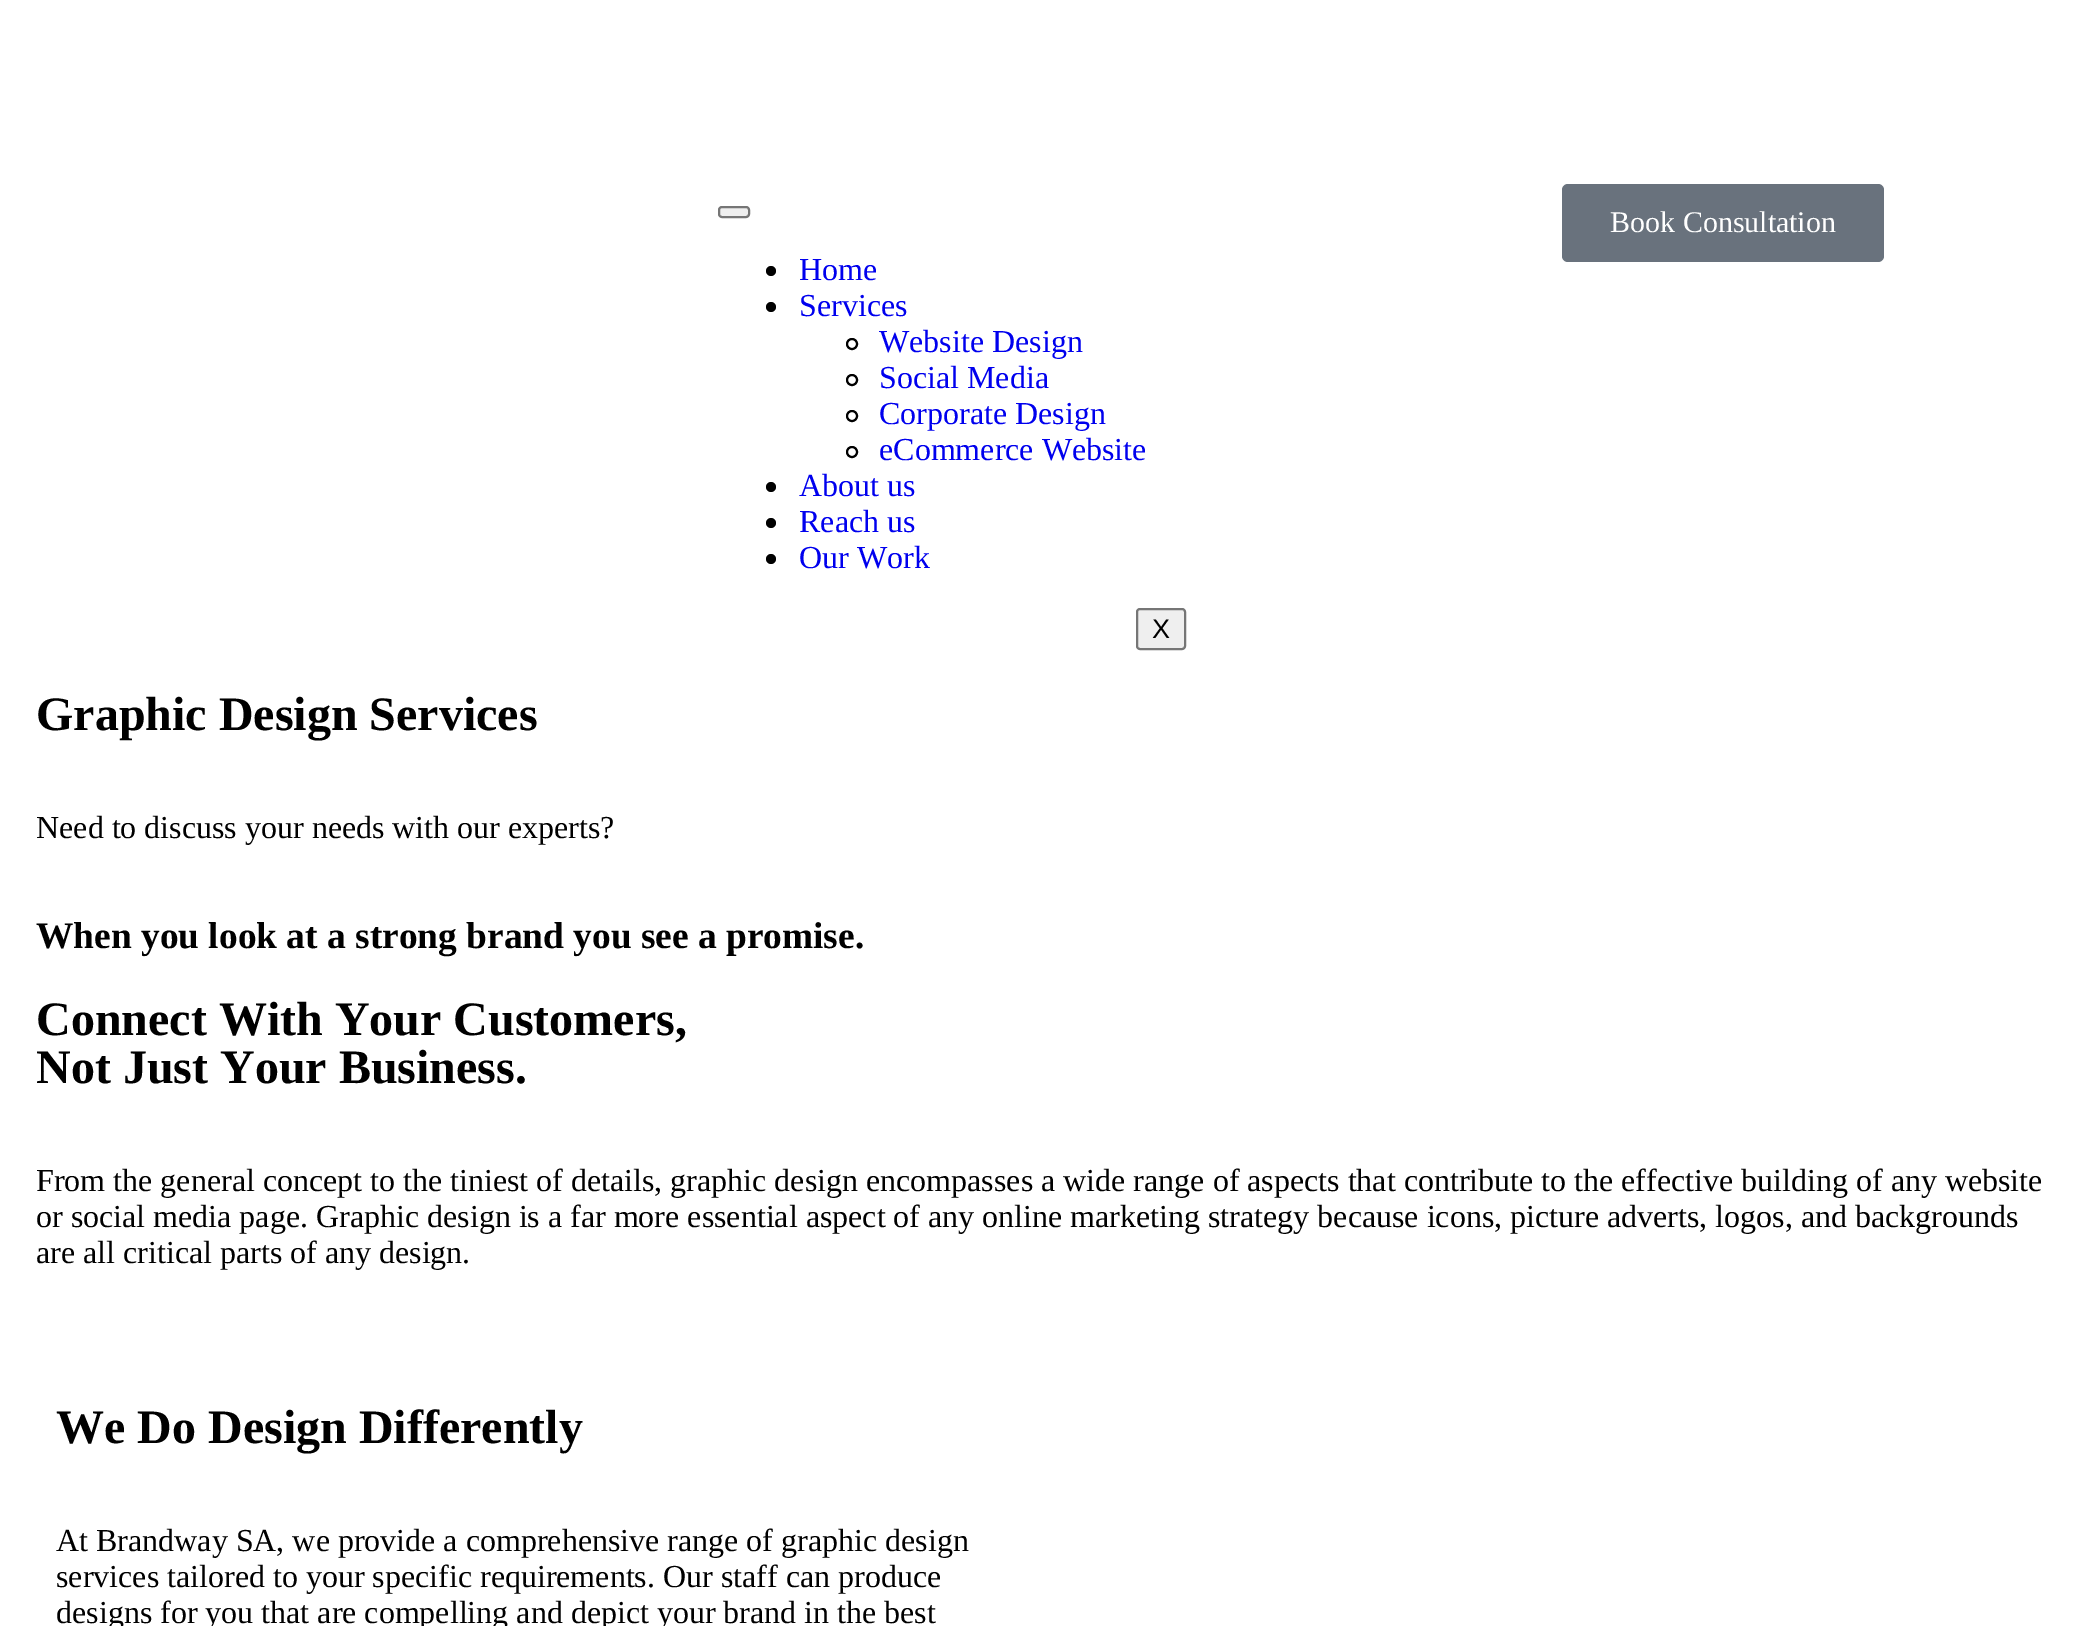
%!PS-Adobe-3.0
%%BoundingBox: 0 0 2080 1626
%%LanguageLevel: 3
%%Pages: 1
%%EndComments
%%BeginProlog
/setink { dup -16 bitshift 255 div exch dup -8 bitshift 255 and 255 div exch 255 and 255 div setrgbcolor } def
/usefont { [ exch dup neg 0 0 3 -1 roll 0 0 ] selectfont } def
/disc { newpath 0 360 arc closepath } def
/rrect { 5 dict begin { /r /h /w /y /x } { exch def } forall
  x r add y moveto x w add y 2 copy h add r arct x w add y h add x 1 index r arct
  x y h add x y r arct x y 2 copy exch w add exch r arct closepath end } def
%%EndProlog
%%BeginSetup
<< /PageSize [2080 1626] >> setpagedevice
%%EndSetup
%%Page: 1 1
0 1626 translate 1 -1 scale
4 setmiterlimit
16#FFFFFF setink
0 0 2080 1626 rectfill
16#69727D setink
1562 184 322 78 6 rrect fill
/LiberationSerif-Regular 30 usefont
16#FFFFFF setink
1610 232 moveto (Book Consultation) show
16#EFEFEF setink
719 207 30 10 3 rrect gsave fill grestore
16#767676 setink
2 setlinewidth
stroke
16#000000 setink
771 271 5 disc fill
/LiberationSerif-Regular 32 usefont
16#0000EE setink
799 280 moveto (Home) show
16#000000 setink
771 307 5 disc fill
16#0000EE setink
799 316 moveto (Services) show
16#000000 setink
852 344 5 disc stroke
16#0000EE setink
879 352 moveto (Website Design) show
16#000000 setink
852 380 5 disc stroke
16#0000EE setink
879 388 moveto (Social Media) show
16#000000 setink
852 416 5 disc stroke
16#0000EE setink
879 424 moveto (Corporate Design) show
16#000000 setink
852 452 5 disc stroke
16#0000EE setink
879 460 moveto (eCommerce Website) show
16#000000 setink
771 487 5 disc fill
16#0000EE setink
799 496 moveto (About us) show
16#000000 setink
771 523 5 disc fill
16#0000EE setink
799 532 moveto (Reach us) show
16#000000 setink
771 559 5 disc fill
16#0000EE setink
799 568 moveto (Our Work) show
16#EFEFEF setink
1137 609 48 40 3 rrect gsave fill grestore
16#767676 setink
stroke
/LiberationSans-Regular 27 usefont
16#000000 setink
1152 638 moveto (X) show
/LiberationSerif-Bold 48 usefont
36 730 moveto (Graphic Design Services) show
/LiberationSerif-Regular 32 usefont
36 838 moveto (Need to discuss your needs with our experts?) show
/LiberationSerif-Bold 37.4 usefont
36 948 moveto (When you look at a strong brand you see a promise.) show
/LiberationSerif-Bold 48 usefont
36 1035 moveto (Connect With Your Customers,) show
36 1083 moveto (Not Just Your Business.) show
/LiberationSerif-Regular 32 usefont
[
    [(From the general concept to the tiniest of details, graphic design encompasses a wide range of aspects that contribute to the effective building of any website) 36 1191]
    [(or social media page. Graphic design is a far more essential aspect of any online marketing strategy because icons, picture adverts, logos, and backgrounds) 36 1227]
    [(are all critical parts of any design.) 36 1263]
] { aload pop moveto show } forall
/LiberationSerif-Bold 48 usefont
56 1443 moveto (We Do Design Differently) show
/LiberationSerif-Regular 32 usefont
[
    [(At Brandway SA, we provide a comprehensive range of graphic design) 56 1551]
    [(services tailored to your specific requirements. Our staff can produce) 56 1587]
    [(designs for you that are compelling and depict your brand in the best) 56 1623]
] { aload pop moveto show } forall
showpage
%%EOF
